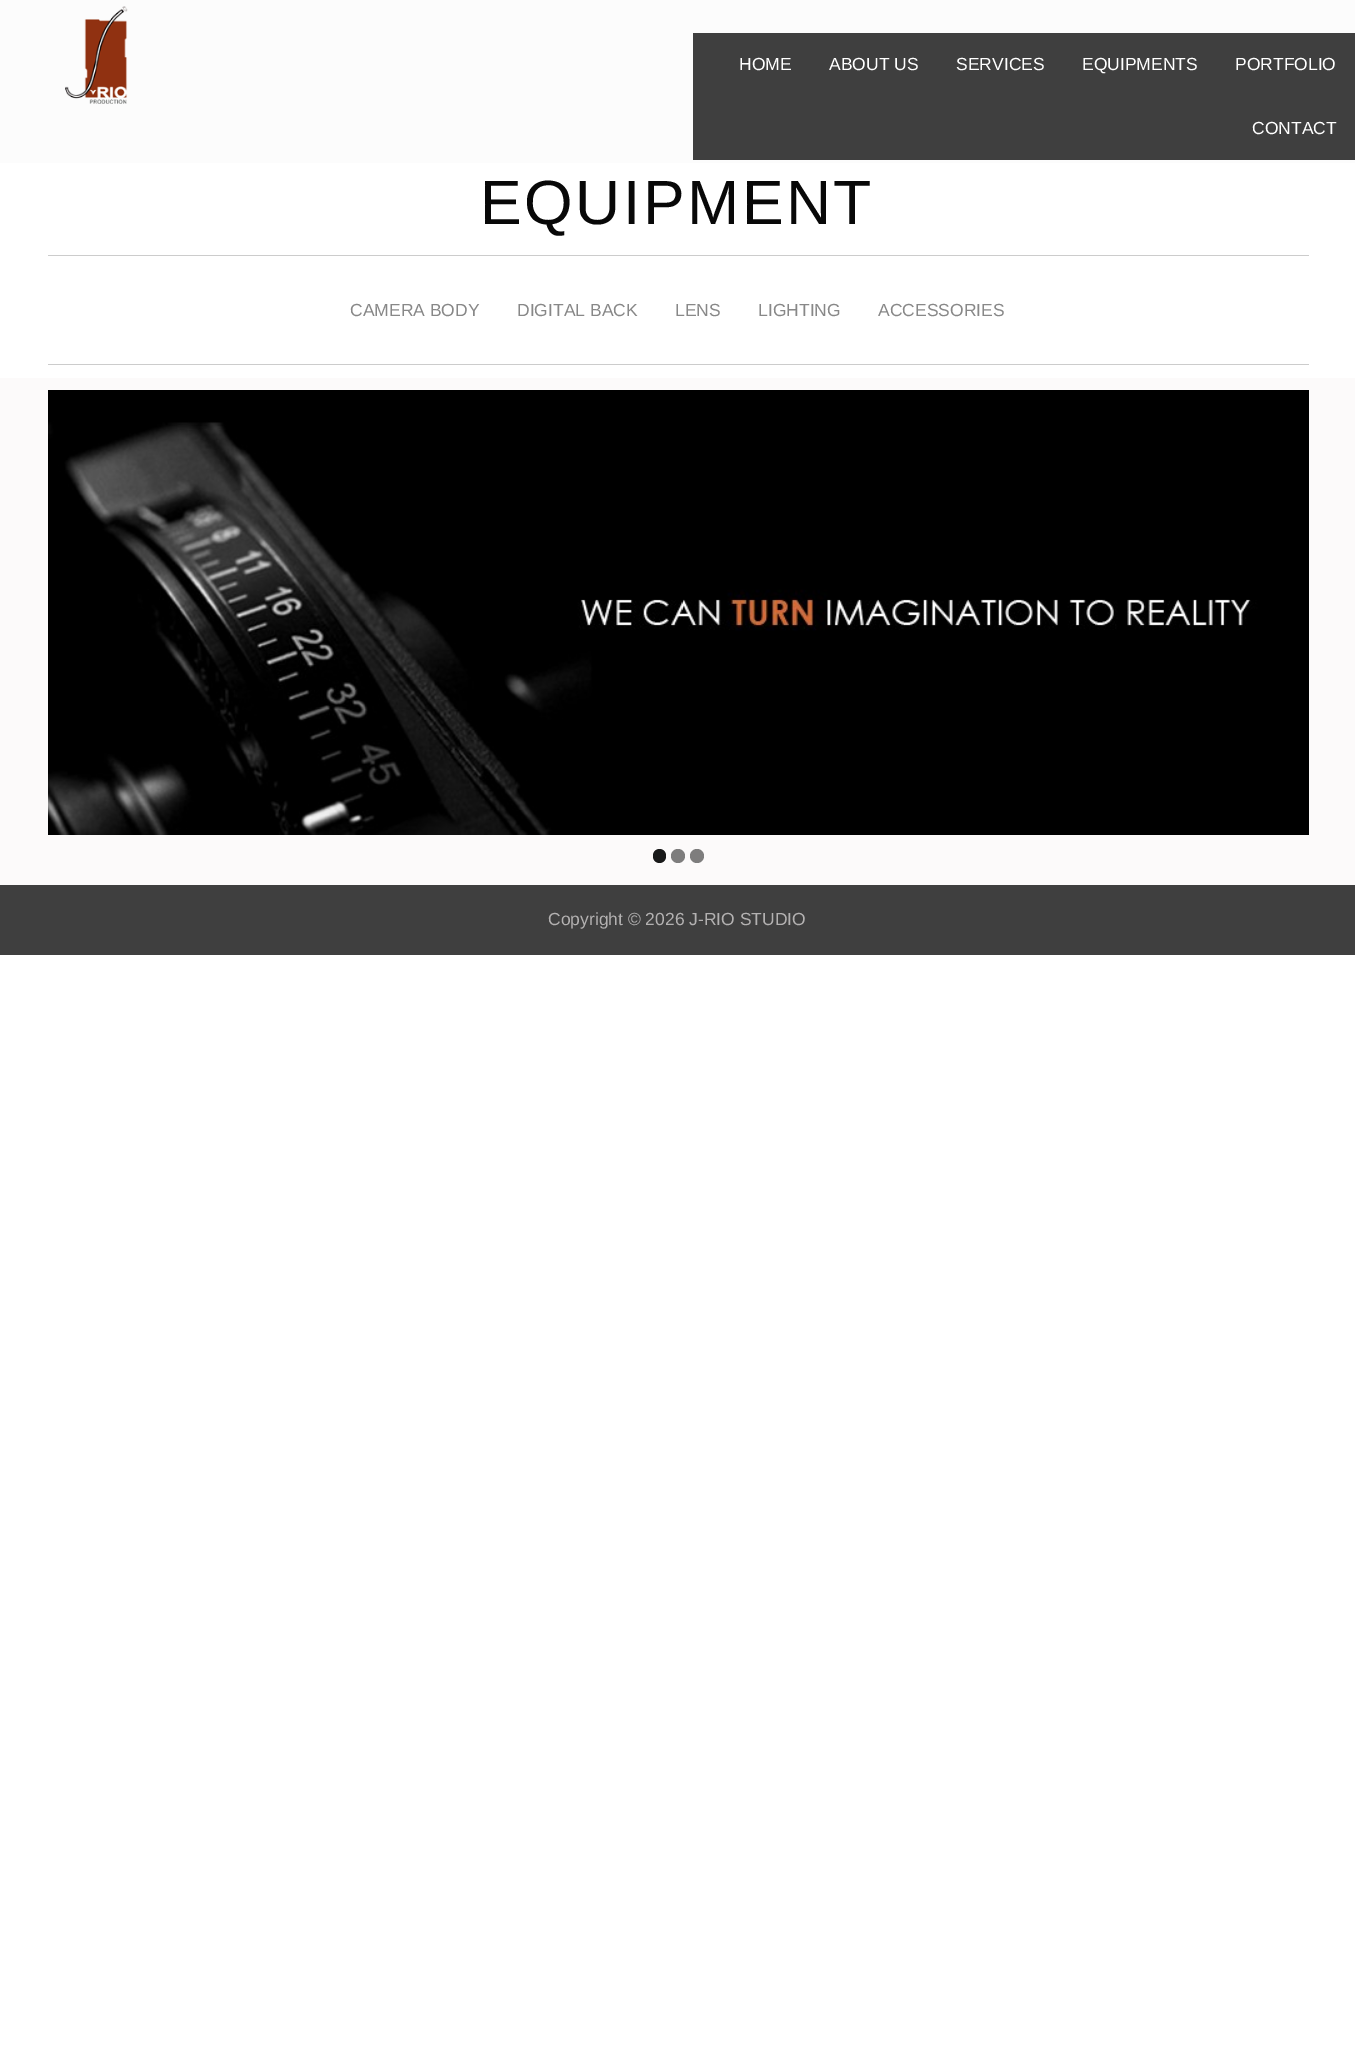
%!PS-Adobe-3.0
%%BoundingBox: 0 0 1355 2048
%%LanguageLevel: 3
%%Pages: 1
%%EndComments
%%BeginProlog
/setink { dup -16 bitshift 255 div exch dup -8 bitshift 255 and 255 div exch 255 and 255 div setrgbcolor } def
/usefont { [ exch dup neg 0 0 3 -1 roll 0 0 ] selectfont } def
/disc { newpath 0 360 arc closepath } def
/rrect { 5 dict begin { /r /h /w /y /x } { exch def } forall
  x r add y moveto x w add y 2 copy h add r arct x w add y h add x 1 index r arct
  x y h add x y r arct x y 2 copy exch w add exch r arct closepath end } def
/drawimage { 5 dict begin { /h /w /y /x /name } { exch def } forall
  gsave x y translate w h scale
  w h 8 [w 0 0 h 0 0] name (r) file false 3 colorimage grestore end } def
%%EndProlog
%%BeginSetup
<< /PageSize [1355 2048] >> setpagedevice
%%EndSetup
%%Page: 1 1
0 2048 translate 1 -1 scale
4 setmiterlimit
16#FFFFFF setink
0 0 1355 2048 rectfill
16#FCFCFC setink
0 0 1355 163 rectfill
(img1.raw) 65 6 63 98 drawimage
16#3F3F3F setink
693 33 662 127 rectfill
/LiberationSans-Regular 17.5 usefont
16#FFFFFF setink
[
    [(HOME) 739 70]
    [(ABOUT US) 829 70]
    [(SERVICES) 956 70]
    [(EQUIPMENTS) 1082 70]
    [(PORTFOLIO) 1235 70]
    [(CONTACT) 1252 134]
] { aload pop moveto show } forall
/LiberationSans-Regular 62.5 usefont
16#080808 setink
480 224 moveto 2.5 0 (EQUIPMENT) ashow
16#CCCCCC setink
48 255 1261 1 rectfill
48 364 1261 1 rectfill
/LiberationSans-Regular 17.5 usefont
16#888888 setink
[
    [(CAMERA BODY) 350 316]
    [(DIGITAL BACK) 517 316]
    [(LENS) 675 316]
    [(LIGHTING) 758 316]
    [(ACCESSORIES) 878 316]
] { aload pop moveto show } forall
16#FCFAFA setink
0 378 1355 507 rectfill
(img2.raw) 48 390 1261 445 drawimage
16#191919 setink
653 849 13 14 6.5 rrect fill
16#7E7D7D setink
678 856 7 disc fill
697 856 7 disc fill
16#3F3F3F setink
0 885 1355 70 rectfill
16#B3B1B1 setink
548 925 moveto (Copyright © 2026 J-RIO STUDIO) show
showpage
%%EOF
